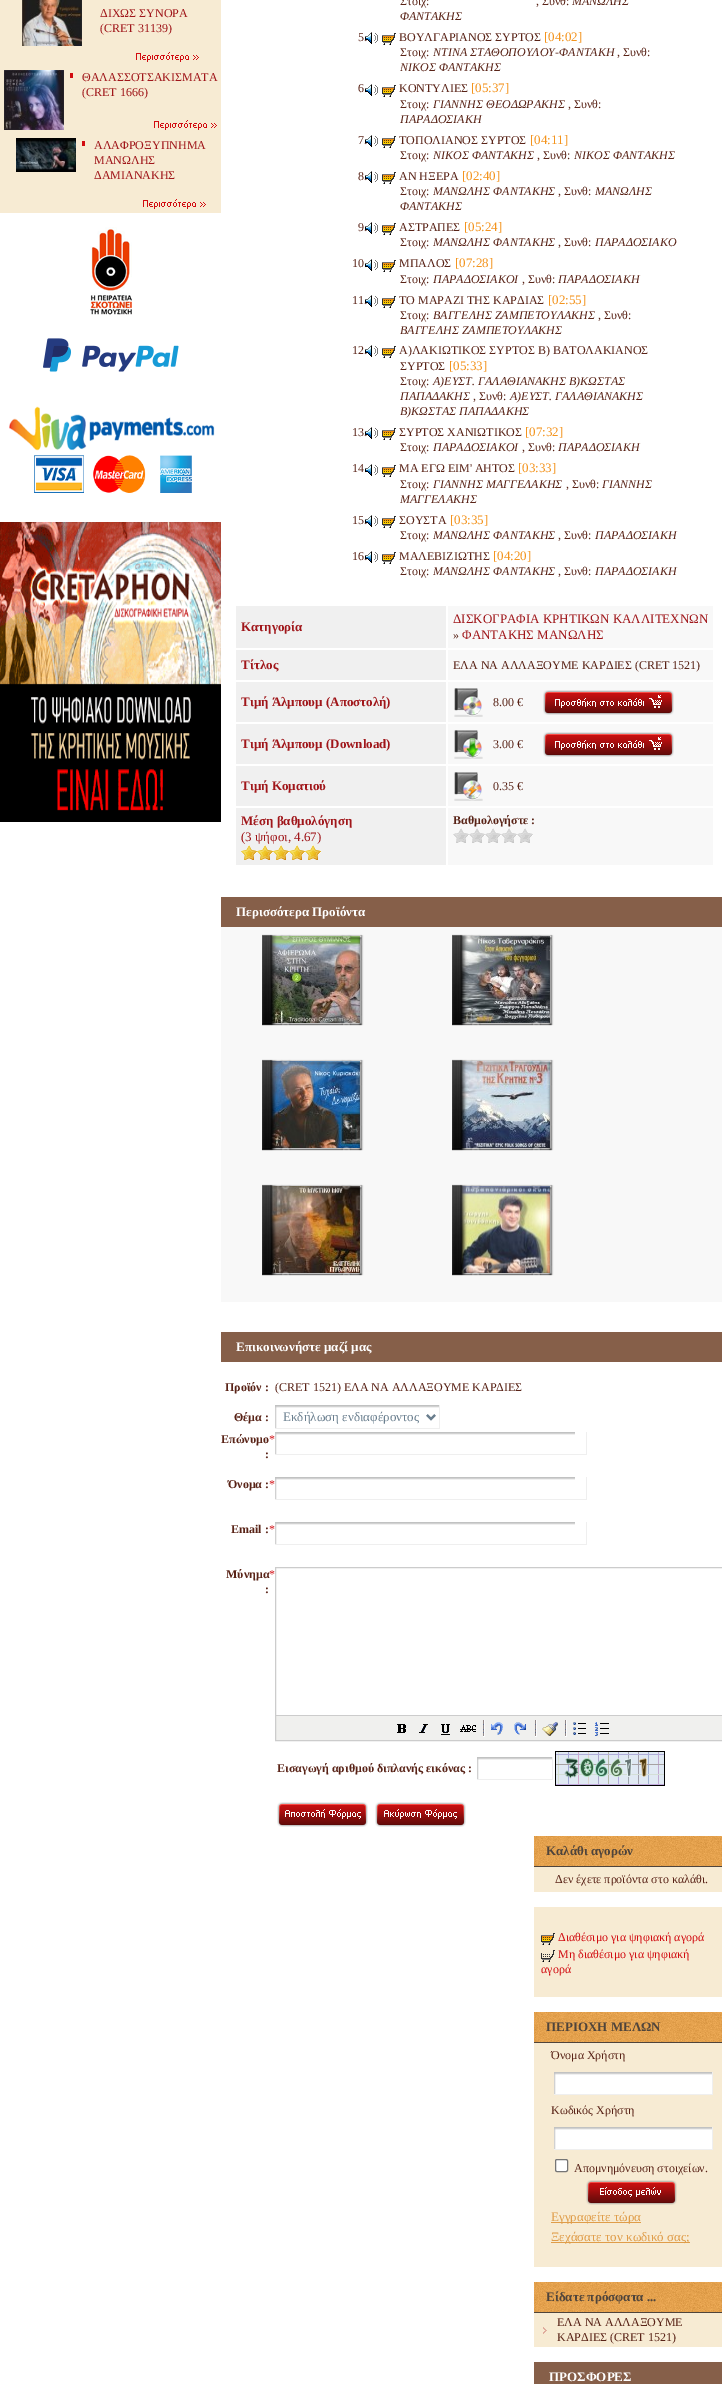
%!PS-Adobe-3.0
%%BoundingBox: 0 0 722 2384
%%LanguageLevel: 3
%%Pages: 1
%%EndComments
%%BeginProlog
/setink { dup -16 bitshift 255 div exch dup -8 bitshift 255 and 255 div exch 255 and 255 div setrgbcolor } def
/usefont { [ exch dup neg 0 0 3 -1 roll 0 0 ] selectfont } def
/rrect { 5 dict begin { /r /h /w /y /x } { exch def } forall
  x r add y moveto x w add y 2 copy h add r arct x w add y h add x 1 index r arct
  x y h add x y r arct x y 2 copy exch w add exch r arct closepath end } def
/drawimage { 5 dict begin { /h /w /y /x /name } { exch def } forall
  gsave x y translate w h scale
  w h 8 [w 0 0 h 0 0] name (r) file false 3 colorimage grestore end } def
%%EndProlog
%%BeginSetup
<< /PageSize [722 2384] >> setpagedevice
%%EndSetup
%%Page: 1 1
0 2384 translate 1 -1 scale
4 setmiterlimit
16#FFFFFF setink
0 0 722 2384 rectfill
16#F7EBD3 setink
0 0 221 213 rectfill
(img1.raw) 22 0 60 46 drawimage
/LiberationSerif-Regular 12 usefont
16#A0161A setink
100 17 moveto (ΔΙΧΩΣ ΣΥΝΟΡΑ) show
100 32 moveto (\(CRET 31139\)) show
(img2.raw) 136 52 63 10 drawimage
(img3.raw) 4 70 60 60 drawimage
16#D20C11 setink
70 73 3 5 rectfill
16#A0161A setink
82 81 moveto (ΘΑΛΑΣΣΟΤΣΑΚΙΣΜΑΤΑ) show
82 96 moveto (\(CRET 1666\)) show
(img2.raw) 154 120 63 10 drawimage
(img4.raw) 16 138 60 34 drawimage
16#D20C11 setink
82 141 3 5 rectfill
16#A0161A setink
[
    [(ΑΛΑΦΡΟΞΥΠΝΗΜΑ) 94 149]
    [(ΜΑΝΩΛΗΣ) 94 164]
    [(ΔΑΜΙΑΝΑΚΗΣ) 94 179]
] { aload pop moveto show } forall
(img2.raw) 143 199 63 10 drawimage
(img5.raw) 90 227 42 88 drawimage
(img6.raw) 43 338 136 34 drawimage
(img7.raw) 9 406 206 87 drawimage
(img8.raw) 0 522 221 300 drawimage
16#592317 setink
400 5 moveto (Στοιχ:) show
536 5 moveto (, Συνθ:) show
/LiberationSerif-Italic 12 usefont
572 5 moveto (ΜΑΝΩΛΗΣ) show
400 20 moveto (ΦΑΝΤΑΚΗΣ) show
/LiberationSerif-Regular 12 usefont
358 41 moveto (5.) show
(img9.raw) 365 32 13 12 drawimage
(img10.raw) 382 33 14 12 drawimage
399 41 moveto (ΒΟΥΛΓΑΡΙΑΝΟΣ ΣΥΡΤΟΣ) show
/LiberationSerif-Regular 13 usefont
16#F4941D setink
544 41 moveto ([04:02]) show
/LiberationSerif-Regular 12 usefont
16#592317 setink
400 56 moveto (Στοιχ:) show
/LiberationSerif-Italic 12 usefont
433 56 moveto (ΝΤΙΝΑ ΣΤΑΘΟΠΟΥΛΟΥ-ΦΑΝΤΑΚΗ) show
/LiberationSerif-Regular 12 usefont
617 56 moveto (, Συνθ:) show
/LiberationSerif-Italic 12 usefont
400 71 moveto (ΝΙΚΟΣ ΦΑΝΤΑΚΗΣ) show
/LiberationSerif-Regular 12 usefont
358 92 moveto (6) show
(img11.raw) 365 84 13 12 drawimage
(img10.raw) 382 85 14 12 drawimage
399 92 moveto (ΚΟΝΤΥΛΙΕΣ) show
/LiberationSerif-Regular 13 usefont
16#F4941D setink
471 92 moveto ([05:37]) show
/LiberationSerif-Regular 12 usefont
16#592317 setink
400 108 moveto (Στοιχ:) show
/LiberationSerif-Italic 12 usefont
433 108 moveto (ΓΙΑΝΝΗΣ ΘΕΟΔΩΡΑΚΗΣ) show
/LiberationSerif-Regular 12 usefont
568 108 moveto (, Συνθ:) show
/LiberationSerif-Italic 12 usefont
400 123 moveto (ΠΑΡΑΔΟΣΙΑΚΗ) show
/LiberationSerif-Regular 12 usefont
358 144 moveto (7.) show
(img9.raw) 365 135 13 12 drawimage
(img10.raw) 382 136 14 12 drawimage
399 144 moveto (ΤΟΠΟΛΙΑΝΟΣ ΣΥΡΤΟΣ) show
/LiberationSerif-Regular 13 usefont
16#F4941D setink
530 144 moveto ([04:11]) show
/LiberationSerif-Regular 12 usefont
16#592317 setink
400 159 moveto (Στοιχ:) show
/LiberationSerif-Italic 12 usefont
433 159 moveto (ΝΙΚΟΣ ΦΑΝΤΑΚΗΣ) show
/LiberationSerif-Regular 12 usefont
537 159 moveto (, Συνθ:) show
/LiberationSerif-Italic 12 usefont
574 159 moveto (ΝΙΚΟΣ ΦΑΝΤΑΚΗΣ) show
/LiberationSerif-Regular 12 usefont
358 180 moveto (8.) show
(img9.raw) 365 171 13 12 drawimage
(img10.raw) 382 172 14 12 drawimage
399 180 moveto (ΑΝ ΗΞΕΡΑ) show
/LiberationSerif-Regular 13 usefont
16#F4941D setink
462 180 moveto ([02:40]) show
/LiberationSerif-Regular 12 usefont
16#592317 setink
400 195 moveto (Στοιχ:) show
/LiberationSerif-Italic 12 usefont
433 195 moveto (ΜΑΝΩΛΗΣ ΦΑΝΤΑΚΗΣ) show
/LiberationSerif-Regular 12 usefont
558 195 moveto (, Συνθ:) show
/LiberationSerif-Italic 12 usefont
595 195 moveto (ΜΑΝΩΛΗΣ) show
400 210 moveto (ΦΑΝΤΑΚΗΣ) show
/LiberationSerif-Regular 12 usefont
358 231 moveto (9.) show
(img9.raw) 365 222 13 12 drawimage
(img10.raw) 382 223 14 12 drawimage
399 231 moveto (ΑΣΤΡΑΠΕΣ) show
/LiberationSerif-Regular 13 usefont
16#F4941D setink
464 231 moveto ([05:24]) show
/LiberationSerif-Regular 12 usefont
16#592317 setink
400 246 moveto (Στοιχ:) show
/LiberationSerif-Italic 12 usefont
433 246 moveto (ΜΑΝΩΛΗΣ ΦΑΝΤΑΚΗΣ) show
/LiberationSerif-Regular 12 usefont
558 246 moveto (, Συνθ:) show
/LiberationSerif-Italic 12 usefont
595 246 moveto (ΠΑΡΑΔΟΣΙΑΚΟ) show
/LiberationSerif-Regular 12 usefont
352 267 moveto (10) show
(img11.raw) 365 259 13 12 drawimage
(img10.raw) 382 260 14 12 drawimage
399 267 moveto (ΜΠΑΛΟΣ) show
/LiberationSerif-Regular 13 usefont
16#F4941D setink
455 267 moveto ([07:28]) show
/LiberationSerif-Regular 12 usefont
16#592317 setink
400 283 moveto (Στοιχ:) show
/LiberationSerif-Italic 12 usefont
433 283 moveto (ΠΑΡΑΔΟΣΙΑΚΟΙ) show
/LiberationSerif-Regular 12 usefont
522 283 moveto (, Συνθ:) show
/LiberationSerif-Italic 12 usefont
558 283 moveto (ΠΑΡΑΔΟΣΙΑΚΗ) show
/LiberationSerif-Regular 12 usefont
352 304 moveto (11.) show
(img9.raw) 365 295 13 12 drawimage
(img10.raw) 382 296 14 12 drawimage
399 304 moveto (ΤΟ ΜΑΡΑΖΙ ΤΗΣ ΚΑΡΔΙΑΣ) show
/LiberationSerif-Regular 13 usefont
16#F4941D setink
548 304 moveto ([02:55]) show
/LiberationSerif-Regular 12 usefont
16#592317 setink
400 319 moveto (Στοιχ:) show
/LiberationSerif-Italic 12 usefont
433 319 moveto (ΒΑΓΓΕΛΗΣ ΖΑΜΠΕΤΟΥΛΑΚΗΣ) show
/LiberationSerif-Regular 12 usefont
598 319 moveto (, Συνθ:) show
/LiberationSerif-Italic 12 usefont
400 334 moveto (ΒΑΓΓΕΛΗΣ ΖΑΜΠΕΤΟΥΛΑΚΗΣ) show
/LiberationSerif-Regular 12 usefont
352 354 moveto (12.) show
(img9.raw) 365 345 13 12 drawimage
(img10.raw) 382 346 14 12 drawimage
399 354 moveto (Α\)ΛΑΚΙΩΤΙΚΟΣ ΣΥΡΤΟΣ Β\) ΒΑΤΟΛΑΚΙΑΝΟΣ) show
400 370 moveto (ΣΥΡΤΟΣ) show
/LiberationSerif-Regular 13 usefont
16#F4941D setink
449 370 moveto ([05:33]) show
/LiberationSerif-Regular 12 usefont
16#592317 setink
400 385 moveto (Στοιχ:) show
/LiberationSerif-Italic 12 usefont
433 385 moveto (Α\)ΕΥΣΤ. ΓΑΛΑΘΙΑΝΑΚΗΣ Β\)ΚΩΣΤΑΣ) show
400 400 moveto (ΠΑΠΑΔΑΚΗΣ) show
/LiberationSerif-Regular 12 usefont
473 400 moveto (, Συνθ:) show
/LiberationSerif-Italic 12 usefont
510 400 moveto (Α\)ΕΥΣΤ. ΓΑΛΑΘΙΑΝΑΚΗΣ) show
400 415 moveto (Β\)ΚΩΣΤΑΣ ΠΑΠΑΔΑΚΗΣ) show
/LiberationSerif-Regular 12 usefont
352 436 moveto (13.) show
(img9.raw) 365 427 13 12 drawimage
(img10.raw) 382 428 14 12 drawimage
399 436 moveto (ΣΥΡΤΟΣ ΧΑΝΙΩΤΙΚΟΣ) show
/LiberationSerif-Regular 13 usefont
16#F4941D setink
525 436 moveto ([07:32]) show
/LiberationSerif-Regular 12 usefont
16#592317 setink
400 451 moveto (Στοιχ:) show
/LiberationSerif-Italic 12 usefont
433 451 moveto (ΠΑΡΑΔΟΣΙΑΚΟΙ) show
/LiberationSerif-Regular 12 usefont
522 451 moveto (, Συνθ:) show
/LiberationSerif-Italic 12 usefont
558 451 moveto (ΠΑΡΑΔΟΣΙΑΚΗ) show
/LiberationSerif-Regular 12 usefont
352 472 moveto (14) show
(img11.raw) 365 464 13 12 drawimage
(img10.raw) 382 465 14 12 drawimage
399 472 moveto (ΜΑ ΕΓΩ ΕΙΜ' ΑΗΤΟΣ) show
/LiberationSerif-Regular 13 usefont
16#F4941D setink
518 472 moveto ([03:33]) show
/LiberationSerif-Regular 12 usefont
16#592317 setink
400 488 moveto (Στοιχ:) show
/LiberationSerif-Italic 12 usefont
433 488 moveto (ΓΙΑΝΝΗΣ ΜΑΓΓΕΛΑΚΗΣ) show
/LiberationSerif-Regular 12 usefont
566 488 moveto (, Συνθ:) show
/LiberationSerif-Italic 12 usefont
602 488 moveto (ΓΙΑΝΝΗΣ) show
400 503 moveto (ΜΑΓΓΕΛΑΚΗΣ) show
/LiberationSerif-Regular 12 usefont
352 524 moveto (15.) show
(img9.raw) 365 515 13 12 drawimage
(img10.raw) 382 516 14 12 drawimage
399 524 moveto (ΣΟΥΣΤΑ) show
/LiberationSerif-Regular 13 usefont
16#F4941D setink
450 524 moveto ([03:35]) show
/LiberationSerif-Regular 12 usefont
16#592317 setink
400 539 moveto (Στοιχ:) show
/LiberationSerif-Italic 12 usefont
433 539 moveto (ΜΑΝΩΛΗΣ ΦΑΝΤΑΚΗΣ) show
/LiberationSerif-Regular 12 usefont
558 539 moveto (, Συνθ:) show
/LiberationSerif-Italic 12 usefont
595 539 moveto (ΠΑΡΑΔΟΣΙΑΚΗ) show
/LiberationSerif-Regular 12 usefont
352 560 moveto (16.) show
(img9.raw) 365 551 13 12 drawimage
(img10.raw) 382 552 14 12 drawimage
399 560 moveto (ΜΑΛΕΒΙΖΙΩΤΗΣ) show
/LiberationSerif-Regular 13 usefont
16#F4941D setink
493 560 moveto ([04:20]) show
/LiberationSerif-Regular 12 usefont
16#592317 setink
400 575 moveto (Στοιχ:) show
/LiberationSerif-Italic 12 usefont
433 575 moveto (ΜΑΝΩΛΗΣ ΦΑΝΤΑΚΗΣ) show
/LiberationSerif-Regular 12 usefont
558 575 moveto (, Συνθ:) show
/LiberationSerif-Italic 12 usefont
595 575 moveto (ΠΑΡΑΔΟΣΙΑΚΗ) show
16#F0F0F0 setink
236 606 210 42 rectfill
/LiberationSerif-Bold 13 usefont
16#A0161A setink
241 631 moveto (Κατηγορία) show
16#F8F8F8 setink
448 606 265 42 rectfill
/LiberationSerif-Regular 13 usefont
16#A0161A setink
453 623 moveto (ΔΙΣΚΟΓΡΑΦΙΑ ΚΡΗΤΙΚΩΝ ΚΑΛΛΙΤΕΧΝΩΝ) show
/LiberationSerif-Regular 12 usefont
16#592317 setink
453 639 moveto (») show
/LiberationSerif-Regular 13 usefont
16#A0161A setink
462 639 moveto (ΦΑΝΤΑΚΗΣ ΜΑΝΩΛΗΣ) show
16#F0F0F0 setink
236 650 210 30 rectfill
/LiberationSerif-Bold 13 usefont
16#A0161A setink
241 669 moveto (Τίτλος) show
16#F8F8F8 setink
448 650 265 30 rectfill
/LiberationSerif-Regular 12 usefont
16#592317 setink
453 669 moveto (ΕΛΑ ΝΑ ΑΛΛΑΞΟΥΜΕ ΚΑΡΔΙΕΣ \(CRET 1521\)) show
16#F0F0F0 setink
236 682 210 40 rectfill
/LiberationSerif-Bold 13 usefont
16#A0161A setink
241 706 moveto (Τιμή Άλμπουμ \(Αποστολή\)) show
16#F8F8F8 setink
448 682 265 40 rectfill
(img12.raw) 454 688 29 29 drawimage
/LiberationSerif-Regular 12 usefont
16#592317 setink
493 706 moveto (8.00 €) show
(img13.raw) 543 690 131 25 drawimage
16#F0F0F0 setink
236 724 210 40 rectfill
/LiberationSerif-Bold 13 usefont
16#A0161A setink
241 748 moveto (Τιμή Άλμπουμ \(Download\)) show
16#F8F8F8 setink
448 724 265 40 rectfill
(img14.raw) 454 730 29 29 drawimage
/LiberationSerif-Regular 12 usefont
16#592317 setink
493 748 moveto (3.00 €) show
(img13.raw) 543 732 131 25 drawimage
16#F0F0F0 setink
236 766 210 40 rectfill
/LiberationSerif-Bold 13 usefont
16#A0161A setink
241 790 moveto (Τιμή Κοματιού) show
16#F8F8F8 setink
448 766 265 40 rectfill
(img15.raw) 454 772 29 29 drawimage
/LiberationSerif-Regular 12 usefont
16#592317 setink
493 790 moveto (0.35 €) show
16#F0F0F0 setink
236 808 210 57 rectfill
/LiberationSerif-Bold 13 usefont
16#A0161A setink
241 825 moveto (Μέση βαθμολόγηση) show
/LiberationSerif-Regular 13 usefont
241 841 moveto (\(3 ψήφοι, 4.67\)) show
(img16.raw) 241 845 16 15 drawimage
(img16.raw) 257 845 16 15 drawimage
(img16.raw) 273 845 16 15 drawimage
(img16.raw) 289 845 16 15 drawimage
(img16.raw) 305 845 16 15 drawimage
16#F8F8F8 setink
448 808 265 57 rectfill
/LiberationSerif-Bold 12 usefont
16#592317 setink
453 824 moveto (Βαθμολογήστε :) show
(img17.raw) 453 828 16 15 drawimage
(img17.raw) 469 828 16 15 drawimage
(img17.raw) 485 828 16 15 drawimage
(img17.raw) 501 828 16 15 drawimage
(img17.raw) 517 828 16 15 drawimage
16#865F49 setink
221 897 501 30 rectfill
/LiberationSerif-Bold 13 usefont
16#FFFFFF setink
236 916 moveto (Περισσότερα Προϊόντα) show
16#F8F8F8 setink
221 927 501 375 rectfill
(img19.raw) 271 936 89 87 drawimage
(img18.raw) 262 934 102 92 drawimage
(img21.raw) 461 936 89 87 drawimage
(img20.raw) 452 934 102 92 drawimage
(img23.raw) 271 1061 89 87 drawimage
(img22.raw) 262 1059 102 92 drawimage
(img25.raw) 461 1061 89 87 drawimage
(img24.raw) 452 1059 102 92 drawimage
(img27.raw) 271 1186 89 87 drawimage
(img26.raw) 262 1184 102 92 drawimage
(img29.raw) 461 1186 89 87 drawimage
(img28.raw) 452 1184 102 92 drawimage
16#865F49 setink
221 1332 501 30 rectfill
16#FFFFFF setink
236 1351 moveto (Επικοινωνήστε μαζί μας) show
/LiberationSerif-Bold 12 usefont
16#592317 setink
225 1391 moveto (Προϊόν :) show
/LiberationSerif-Regular 12 usefont
275 1391 moveto (\(CRET 1521\) ΕΛΑ ΝΑ ΑΛΛΑΞΟΥΜΕ ΚΑΡΔΙΕΣ) show
/LiberationSerif-Bold 12 usefont
234 1421 moveto (Θέμα :) show
(img30.raw) 275 1405 164 23 drawimage
16#EFEFEF setink
439 1405 1 24 rectfill
275 1428 165 1 rectfill
16#6B7F8F setink
2 setlinewidth
427 1415 moveto 431 1419 lineto 435 1415 lineto stroke
/LiberationSerif-Regular 13 usefont
283 1421 moveto (Εκδήλωση ενδιαφέροντος) show
/LiberationSerif-Bold 12 usefont
16#592317 setink
221 1443 moveto (Επώνυμο) show
265 1458 moveto (:) show
/LiberationSerif-Regular 12 usefont
16#D20C11 setink
269 1443 moveto (*) show
(img31.raw) 275 1432 300 22 drawimage
16#EFEFEF setink
586 1432 1 23 rectfill
275 1454 312 1 rectfill
/LiberationSerif-Bold 12 usefont
16#592317 setink
228 1488 moveto (Όνομα :) show
/LiberationSerif-Regular 12 usefont
16#D20C11 setink
269 1488 moveto (*) show
(img31.raw) 275 1477 300 22 drawimage
16#EFEFEF setink
586 1477 1 23 rectfill
275 1499 312 1 rectfill
/LiberationSerif-Bold 12 usefont
16#592317 setink
231 1533 moveto (Email :) show
/LiberationSerif-Regular 12 usefont
16#D20C11 setink
269 1533 moveto (*) show
(img31.raw) 275 1522 300 22 drawimage
16#EFEFEF setink
586 1522 1 23 rectfill
275 1544 312 1 rectfill
/LiberationSerif-Bold 12 usefont
16#592317 setink
226 1578 moveto (Μύνημα) show
265 1593 moveto (:) show
/LiberationSerif-Regular 12 usefont
16#D20C11 setink
269 1578 moveto (*) show
16#F0F0EE setink
276 1716 446 24 rectfill
16#CCCCCC setink
1 setlinewidth
275.5 1567.5 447 173 rectstroke
276 1715 446 1 rectfill
(img32.raw) 397 1724 9 9 drawimage
(img33.raw) 419 1724 9 9 drawimage
(img34.raw) 441 1724 9 11 drawimage
(img35.raw) 460 1725 16 7 drawimage
(img36.raw) 483 1720 2 17 drawimage
(img37.raw) 491 1722 12 13 drawimage
(img38.raw) 514 1722 12 13 drawimage
(img36.raw) 535 1720 2 17 drawimage
(img39.raw) 542 1722 16 14 drawimage
(img36.raw) 565 1720 2 17 drawimage
(img40.raw) 573 1722 13 13 drawimage
(img41.raw) 595 1722 14 14 drawimage
/LiberationSerif-Bold 12 usefont
16#592317 setink
277 1772 moveto (Εισαγωγή αριθμού διπλανής εικόνας :) show
(img42.raw) 477 1757 75 22 drawimage
16#EFEFEF setink
552 1757 1 23 rectfill
477 1779 76 1 rectfill
(img43.raw) 555 1751 110 35 drawimage
(img44.raw) 277 1802 91 25 drawimage
(img45.raw) 375 1802 91 25 drawimage
(img46.raw) 534 1836 188 30 drawimage
16#4F443B setink
534 1866 188 1 rectfill
/LiberationSerif-Bold 13 usefont
546 1855 moveto (Καλάθι αγορών) show
16#F7EBD3 setink
534 1867 188 25 rectfill
/LiberationSerif-Regular 12 usefont
16#592317 setink
555 1883 moveto (Δεν έχετε προϊόντα στο καλάθι.) show
16#F7EBD3 setink
534 1907 188 90 rectfill
(img47.raw) 541 1933 14 12 drawimage
16#D20C11 setink
558 1941 moveto (Διαθέσιμο για ψηφιακή αγορά) show
(img48.raw) 541 1950 14 12 drawimage
558 1958 moveto (Μη διαθέσιμο για ψηφιακή) show
541 1973 moveto (αγορά) show
(img46.raw) 534 2012 188 30 drawimage
16#4F443B setink
534 2042 188 1 rectfill
/LiberationSerif-Bold 13 usefont
546 2031 moveto (ΠΕΡΙΟΧΗ ΜΕΛΩΝ) show
16#F7EBD3 setink
534 2043 188 224 rectfill
/LiberationSerif-Regular 12 usefont
16#592317 setink
551 2059 moveto (Όνομα Χρήστη) show
16#FFFFFF setink
556 2075 156 19 rectfill
(img49.raw) 554 2072 158 22 drawimage
16#EFEFEF setink
712 2072 1 23 rectfill
554 2094 159 1 rectfill
16#592317 setink
551 2114 moveto (Κωδικός Χρήστη) show
16#FFFFFF setink
556 2130 156 19 rectfill
(img49.raw) 554 2127 158 22 drawimage
16#EFEFEF setink
712 2127 1 23 rectfill
554 2149 159 1 rectfill
16#FFFFFF setink
555.5 2159.5 12 12 1.5 rrect gsave fill grestore
16#767676 setink
stroke
16#592317 setink
574 2172 moveto (Απομνημόνευση στοιχείων.) show
(img50.raw) 586 2180 91 25 drawimage
16#E09D49 setink
551 2222 90 1 rectfill
/LiberationSerif-Regular 13 usefont
551 2221 moveto (Εγγραφείτε τώρα) show
551 2242 139 1 rectfill
551 2241 moveto (Ξεχάσατε τον κωδικό σας;) show
(img46.raw) 534 2282 188 30 drawimage
16#4F443B setink
534 2312 188 1 rectfill
/LiberationSerif-Bold 13 usefont
546 2301 moveto (Είδατε πρόσφατα ...) show
16#F7EBD3 setink
534 2313 188 34 rectfill
(img51.raw) 543 2327 4 7 drawimage
/LiberationSerif-Regular 12 usefont
16#592317 setink
557 2326 moveto (ΕΛΑ ΝΑ ΑΛΛΑΞΟΥΜΕ) show
557 2341 moveto (ΚΑΡΔΙΕΣ \(CRET 1521\)) show
16#865F49 setink
534 2362 188 22 rectfill
/LiberationSerif-Bold 13 usefont
16#FFFFFF setink
549 2381 moveto (ΠΡΟΣΦΟΡΕΣ) show
showpage
%%EOF
